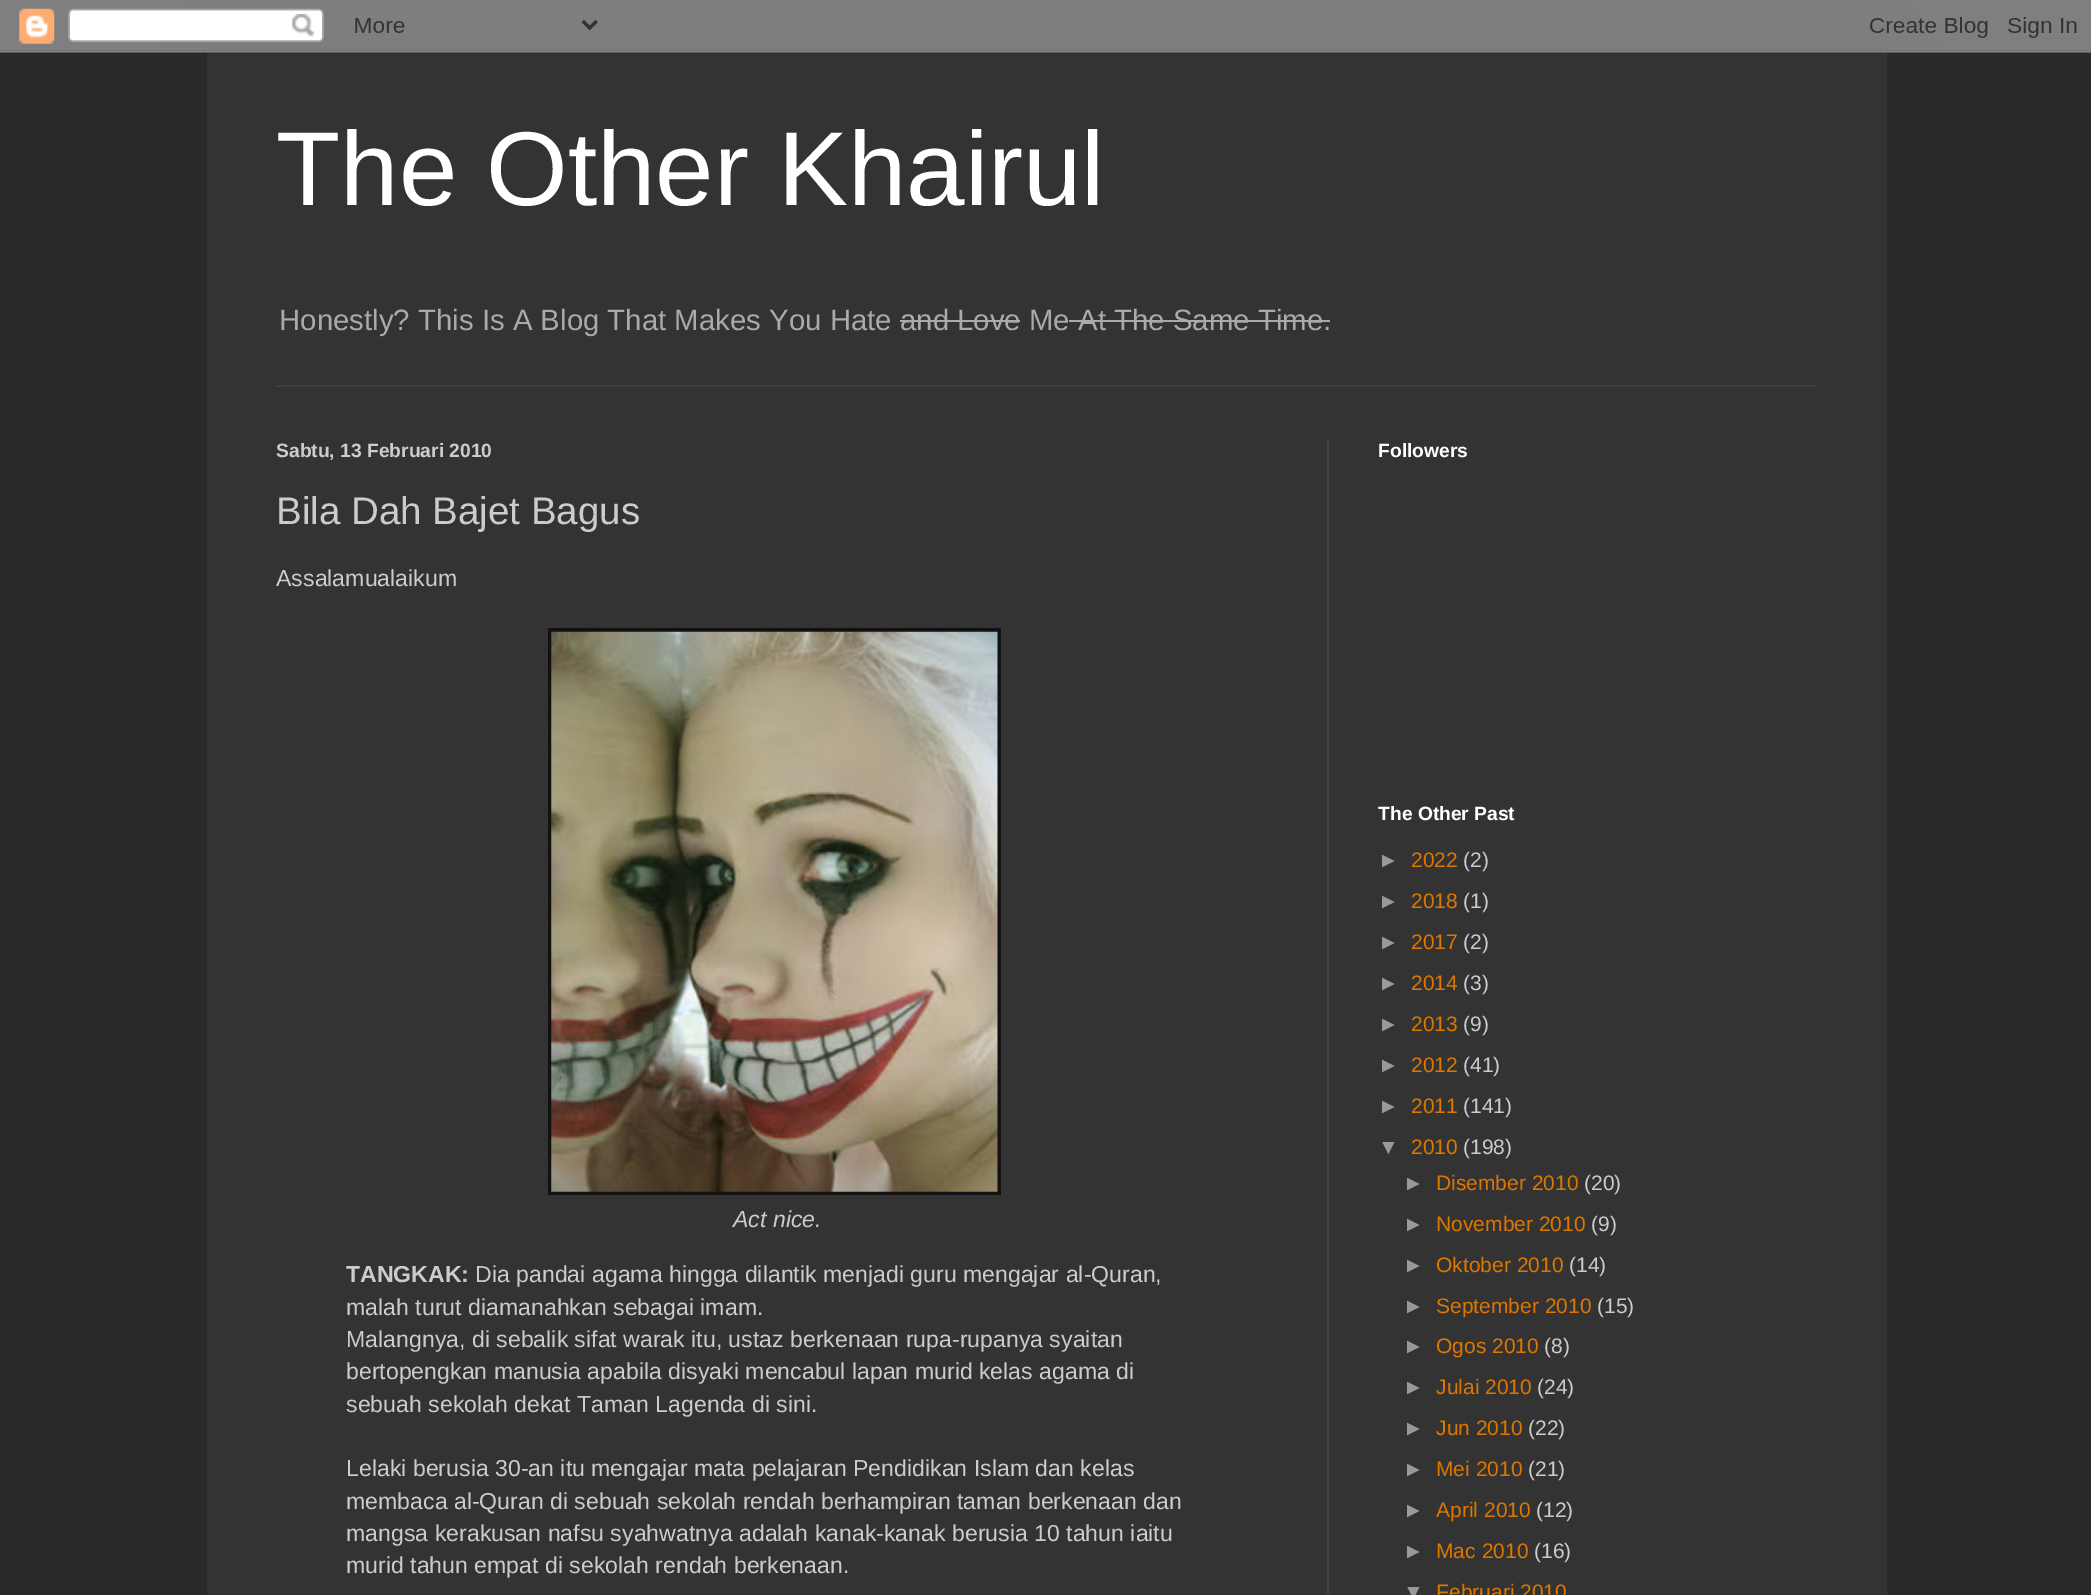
%!PS-Adobe-3.0
%%BoundingBox: 0 0 2091 1595
%%LanguageLevel: 3
%%Pages: 1
%%EndComments
%%BeginProlog
/setink { dup -16 bitshift 255 div exch dup -8 bitshift 255 and 255 div exch 255 and 255 div setrgbcolor } def
/usefont { [ exch dup neg 0 0 3 -1 roll 0 0 ] selectfont } def
/drawimage { 5 dict begin { /h /w /y /x /name } { exch def } forall
  gsave x y translate w h scale
  w h 8 [w 0 0 h 0 0] name (r) file false 3 colorimage grestore end } def
%%EndProlog
%%BeginSetup
<< /PageSize [2091 1595] >> setpagedevice
%%EndSetup
%%Page: 1 1
0 1595 translate 1 -1 scale
4 setmiterlimit
16#292929 setink
0 0 2091 1595 rectfill
(img1.raw) 0 0 2091 53 drawimage
16#333333 setink
207 53 1680 1542 rectfill
/LiberationSans-Regular 105 usefont
16#FFFFFF setink
276 205 moveto (The Other Khairul) show
/LiberationSans-Regular 29.4 usefont
16#AAAAAA setink
279 330 moveto (Honestly? This Is A Blog That Makes You Hate and Love Me At The Same Time.) show
[
    [900 320 120 2 16#AAAAAA]
    [1069 320 261 2 16#AAAAAA]
    [277 385 1540 2 16#404040]
    [1327 439 2 1156 16#404040]
] { aload pop setink rectfill } forall
/LiberationSans-Bold 19.25 usefont
16#CCCCCC setink
276 457 moveto (Sabtu, 13 Februari 2010) show
/LiberationSans-Regular 38.5 usefont
276 524 moveto (Bila Dah Bajet Bagus) show
/LiberationSans-Regular 23.1 usefont
276 586 moveto (Assalamualaikum) show
16#111111 setink
548 628 453 567 rectfill
(img2.raw) 551 631 447 561 drawimage
/LiberationSans-Italic 23.1 usefont
16#CCCCCC setink
733 1227 moveto (Act nice.) show
/LiberationSans-Bold 23.1 usefont
346 1282 moveto (TANGKAK:) show
/LiberationSans-Regular 23.1 usefont
[
    [(Dia pandai agama hingga dilantik menjadi guru mengajar al-Quran,) 475 1282]
    [(malah turut diamanahkan sebagai imam.) 346 1315]
    [(Malangnya, di sebalik sifat warak itu, ustaz berkenaan rupa-rupanya syaitan) 346 1347]
    [(bertopengkan manusia apabila disyaki mencabul lapan murid kelas agama di) 346 1379]
    [(sebuah sekolah dekat Taman Lagenda di sini.) 346 1412]
    [(Lelaki berusia 30-an itu mengajar mata pelajaran Pendidikan Islam dan kelas) 346 1476]
    [(membaca al-Quran di sebuah sekolah rendah berhampiran taman berkenaan dan) 346 1509]
    [(mangsa kerakusan nafsu syahwatnya adalah kanak-kanak berusia 10 tahun iaitu) 346 1541]
    [(murid tahun empat di sekolah rendah berkenaan.) 346 1573]
] { aload pop moveto show } forall
/LiberationSans-Bold 19.25 usefont
16#FFFFFF setink
1378 457 moveto (Followers) show
1378 820 moveto (The Other Past) show
/LiberationSans-Regular 21 usefont
16#999999 setink
1378 867 moveto (►) show
16#DD7700 setink
1411 867 moveto (2022) show
16#CCCCCC setink
1463 867 moveto (\(2\)) show
16#999999 setink
1378 908 moveto (►) show
16#DD7700 setink
1411 908 moveto (2018) show
16#CCCCCC setink
1463 908 moveto (\(1\)) show
16#999999 setink
1378 949 moveto (►) show
16#DD7700 setink
1411 949 moveto (2017) show
16#CCCCCC setink
1463 949 moveto (\(2\)) show
16#999999 setink
1378 990 moveto (►) show
16#DD7700 setink
1411 990 moveto (2014) show
16#CCCCCC setink
1463 990 moveto (\(3\)) show
16#999999 setink
1378 1031 moveto (►) show
16#DD7700 setink
1411 1031 moveto (2013) show
16#CCCCCC setink
1463 1031 moveto (\(9\)) show
16#999999 setink
1378 1072 moveto (►) show
16#DD7700 setink
1411 1072 moveto (2012) show
16#CCCCCC setink
1463 1072 moveto (\(41\)) show
16#999999 setink
1378 1113 moveto (►) show
16#DD7700 setink
1411 1113 moveto (2011) show
16#CCCCCC setink
1463 1113 moveto (\(141\)) show
16#999999 setink
1378 1154 moveto (▼) show
16#DD7700 setink
1411 1154 moveto (2010) show
16#CCCCCC setink
1463 1154 moveto (\(198\)) show
16#999999 setink
1403 1190 moveto (►) show
16#DD7700 setink
1436 1190 moveto (Disember 2010) show
16#CCCCCC setink
1584 1190 moveto (\(20\)) show
16#999999 setink
1403 1231 moveto (►) show
16#DD7700 setink
1436 1231 moveto (November 2010) show
16#CCCCCC setink
1591 1231 moveto (\(9\)) show
16#999999 setink
1403 1272 moveto (►) show
16#DD7700 setink
1436 1272 moveto (Oktober 2010) show
16#CCCCCC setink
1569 1272 moveto (\(14\)) show
16#999999 setink
1403 1313 moveto (►) show
16#DD7700 setink
1436 1313 moveto (September 2010) show
16#CCCCCC setink
1597 1313 moveto (\(15\)) show
16#999999 setink
1403 1353 moveto (►) show
16#DD7700 setink
1436 1353 moveto (Ogos 2010) show
16#CCCCCC setink
1544 1353 moveto (\(8\)) show
16#999999 setink
1403 1394 moveto (►) show
16#DD7700 setink
1436 1394 moveto (Julai 2010) show
16#CCCCCC setink
1537 1394 moveto (\(24\)) show
16#999999 setink
1403 1435 moveto (►) show
16#DD7700 setink
1436 1435 moveto (Jun 2010) show
16#CCCCCC setink
1528 1435 moveto (\(22\)) show
16#999999 setink
1403 1476 moveto (►) show
16#DD7700 setink
1436 1476 moveto (Mei 2010) show
16#CCCCCC setink
1528 1476 moveto (\(21\)) show
16#999999 setink
1403 1517 moveto (►) show
16#DD7700 setink
1436 1517 moveto (April 2010) show
16#CCCCCC setink
1536 1517 moveto (\(12\)) show
16#999999 setink
1403 1558 moveto (►) show
16#DD7700 setink
1436 1558 moveto (Mac 2010) show
16#CCCCCC setink
1534 1558 moveto (\(16\)) show
16#999999 setink
1403 1599 moveto (▼) show
16#DD7700 setink
1436 1599 moveto (Februari 2010) show
showpage
%%EOF
